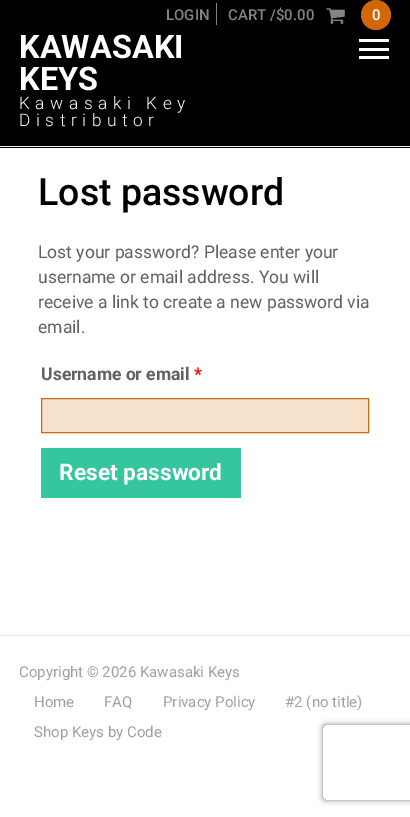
%!PS-Adobe-3.0
%%BoundingBox: 0 0 410 817
%%LanguageLevel: 3
%%Pages: 1
%%EndComments
%%BeginProlog
/setink { dup -16 bitshift 255 div exch dup -8 bitshift 255 and 255 div exch 255 and 255 div setrgbcolor } def
/usefont { [ exch dup neg 0 0 3 -1 roll 0 0 ] selectfont } def
/setalpha { dup .setfillconstantalpha .setstrokeconstantalpha } def
/disc { newpath 0 360 arc closepath } def
/rrect { 5 dict begin { /r /h /w /y /x } { exch def } forall
  x r add y moveto x w add y 2 copy h add r arct x w add y h add x 1 index r arct
  x y h add x y r arct x y 2 copy exch w add exch r arct closepath end } def
/softshadow { 12 dict begin { /a /b /q /h /w /y /x } { exch def } forall gsave /was 0 def
  9 -2 -9 { dup b mul 4 div /e exch def 1 sub .425 mul 2.718 exch exp 1 add a .99 .min exch div /now exch def
    1 1 now sub 1 was sub div sub setalpha /was now def
    w h .min e 2 mul add 0 gt { x e sub y e sub w e 2 mul add h e 2 mul add
      q e add b .6 mul add w h .min 2 div e add .min 0 .max rrect fill } if } for grestore end } def
/drawimage { 5 dict begin { /h /w /y /x /name } { exch def } forall
  gsave x y translate w h scale
  w h 8 [w 0 0 h 0 0] name (r) file false 3 colorimage grestore end } def
%%EndProlog
%%BeginSetup
<< /PageSize [410 817] /PageUsesTransparency true >> setpagedevice
%%EndSetup
%%Page: 1 1
0 .pushpdf14devicefilter
0 817 translate 1 -1 scale
4 setmiterlimit
16#FFFFFF setink
0 0 410 817 rectfill
[
    [0 0 410 148 16#000000]
    [0 146 410 1 16#F0F0F0]
    [216 3 1 22 16#858484]
] { aload pop setink rectfill } forall
/Roboto-Medium 15 usefont
166 20 moveto (LOGIN) show
228 20 moveto (CART /$0.00) show
(img1.raw) 326 8 19 16 drawimage
16#D26707 setink
376 15 15 disc fill
16#FFFFFF setink
372 20 moveto (0) show
/Roboto-Bold 32.5 usefont
19 58 moveto (KAWASAKI) show
19 90 moveto (KEYS) show
/Roboto-Light 17.25 usefont
19 109 moveto 5.6 0 (Kawasaki Key) ashow
19 126 moveto 5.6 0 (Distributor) ashow
[
    [359 48 30 3 16#FFFFFF]
    [359 39 30 3 16#FFFFFF]
    [359 56 30 3 16#FFFFFF]
] { aload pop setink rectfill } forall
/Roboto-Medium 37.5 usefont
16#000000 setink
38 205 moveto (Lost password) show
/Roboto-Regular 17.5 usefont
16#616161 setink
[
    [(Lost your password? Please enter your) 38 258]
    [(username or email address. You will) 38 283]
    [(receive a link to create a new password via) 38 308]
    [(email.) 38 333]
] { aload pop moveto show } forall
/Roboto-Bold 17.5 usefont
41 380 moveto (Username or email) show
16#FF0000 setink
194 380 moveto (*) show
16#F6E1CD setink
41.5 398.5 moveto 368.5 398.5 lineto 368.5 432.5 lineto 41.5 432.5 lineto closepath gsave fill grestore
16#D26707 setink
stroke
16#36C69F setink
41 448 200 50 rectfill
/Roboto-Bold 22.75 usefont
16#FFFFFF setink
59 480 moveto (Reset password) show
16#E5E5E5 setink
0 635 410 1 rectfill
/Roboto-Regular 15 usefont
16#A0A0A0 setink
[
    [(Copyright © 2026 Kawasaki Keys) 19 677]
    [(Home) 34 707]
    [(FAQ) 104 707]
    [(Privacy Policy) 163 707]
    [(#2 \(no title\)) 285 707]
    [(Shop Keys by Code) 34 737]
] { aload pop moveto show } forall
gsave
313 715 moveto 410 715 lineto 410 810 lineto 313 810 lineto closepath 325.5 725 moveto 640.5 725 lineto 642 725 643 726 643 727.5 curveto 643 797.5 lineto 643 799 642 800 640.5 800 curveto 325.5 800 lineto 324 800 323 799 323 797.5 curveto 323 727.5 lineto 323 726 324 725 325.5 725 curveto closepath eoclip newpath
16#808080 setink
323 725 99 75 2.5 3 1 softshadow
grestore
.poppdf14devicefilter showpage
%%EOF
